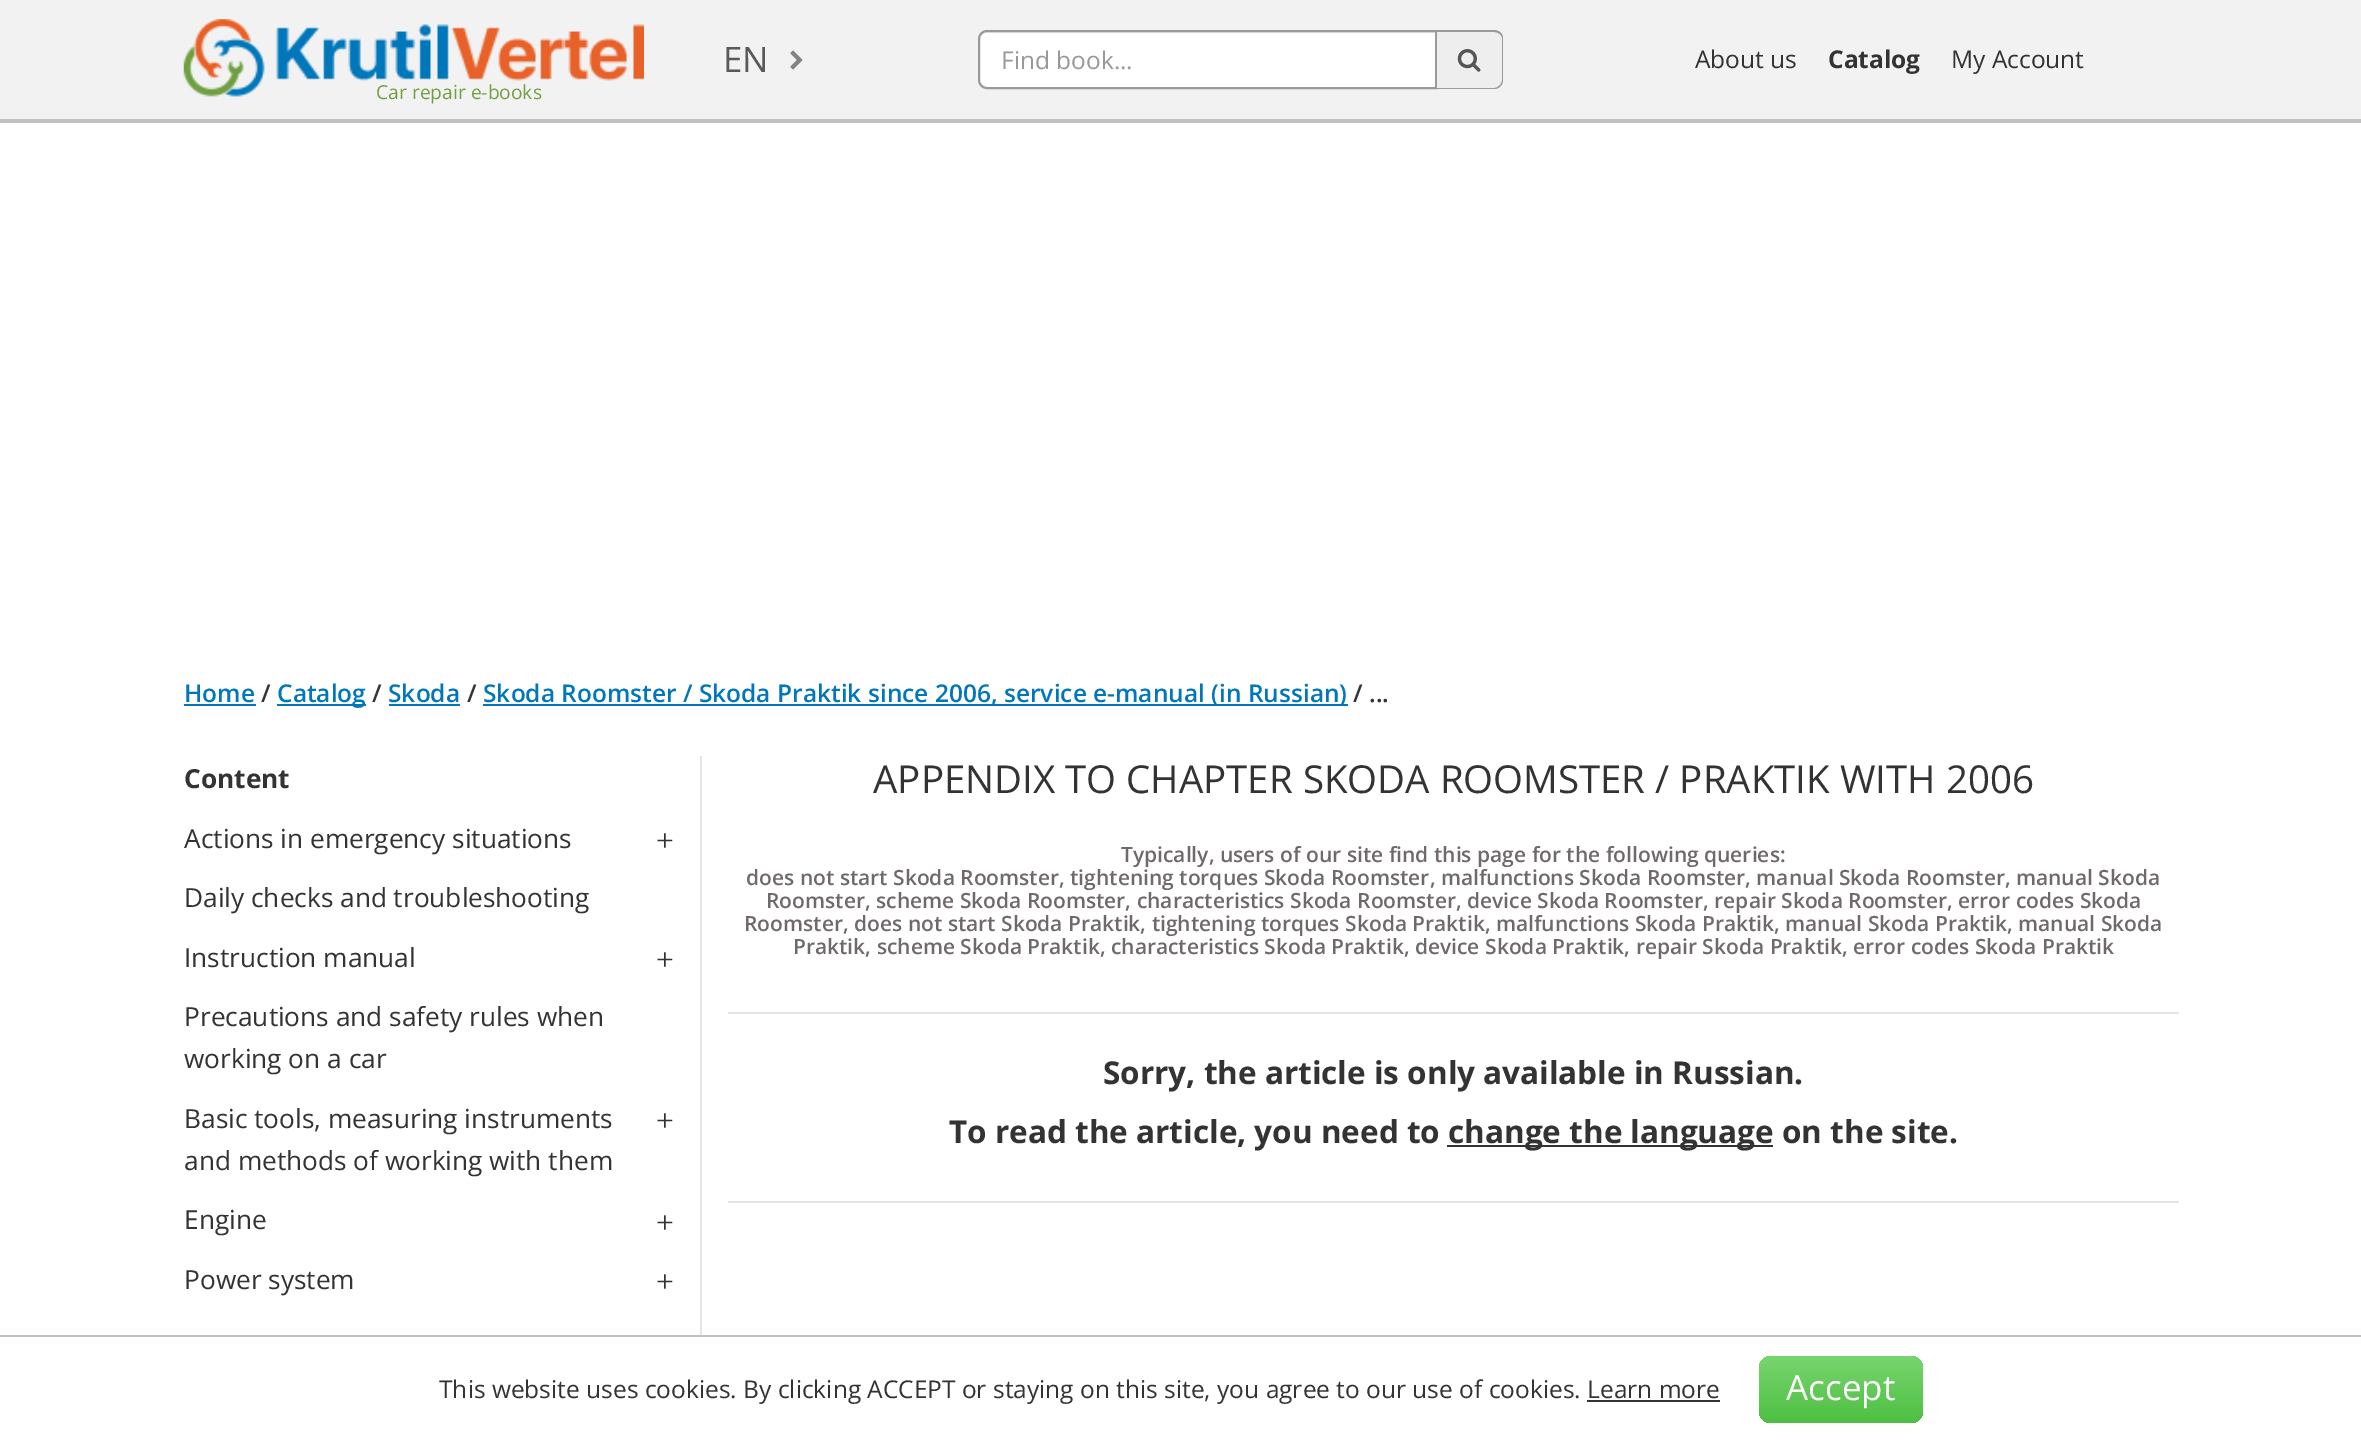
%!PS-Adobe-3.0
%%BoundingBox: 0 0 2361 1444
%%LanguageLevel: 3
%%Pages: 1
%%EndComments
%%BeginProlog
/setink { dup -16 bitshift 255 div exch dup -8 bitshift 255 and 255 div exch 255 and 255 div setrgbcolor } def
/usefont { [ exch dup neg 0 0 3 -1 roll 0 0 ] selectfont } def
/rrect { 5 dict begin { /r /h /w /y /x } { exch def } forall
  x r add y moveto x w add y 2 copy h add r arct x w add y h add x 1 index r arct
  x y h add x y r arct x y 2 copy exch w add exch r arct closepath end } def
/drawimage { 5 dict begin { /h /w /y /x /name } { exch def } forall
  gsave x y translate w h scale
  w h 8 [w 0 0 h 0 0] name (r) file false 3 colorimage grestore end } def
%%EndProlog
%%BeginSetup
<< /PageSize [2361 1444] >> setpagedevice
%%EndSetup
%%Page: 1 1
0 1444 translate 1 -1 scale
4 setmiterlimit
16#FFFFFF setink
0 0 2361 1444 rectfill
16#F2F2F2 setink
0 0 2361 119 rectfill
16#C1C1C1 setink
0 119 2361 4 rectfill
/OpenSans-Regular 35 usefont
16#595959 setink
723 72 moveto (EN) show
(img1.raw) 790 50 13 20 drawimage
16#FFFFFF setink
987 30 moveto 1437 30 lineto 1437 89 lineto 987 89 lineto 982 89 978 85 978 80 curveto 978 39 lineto 978 34 982 30 987 30 curveto closepath fill
16#ECECEC setink
987 33 moveto 1435 33 lineto 1435 32 lineto 987 32 lineto 983 32 980 35 980 39 curveto 980 40 lineto 980 36 983 33 987 33 curveto closepath fill
16#9A9A9A setink
2 setlinewidth
987 31 moveto 1436 31 lineto 1436 88 lineto 987 88 lineto 982.5 88 979 84.5 979 80 curveto 979 39 lineto 979 34.5 982.5 31 987 31 curveto closepath stroke
/OpenSans-Regular 24.5 usefont
16#999999 setink
1001 69 moveto (Find book...) show
16#EEEEEE setink
1437 30 moveto 1494 30 lineto 1499 30 1503 34 1503 39 curveto 1503 80 lineto 1503 85 1499 89 1494 89 curveto 1437 89 lineto closepath fill
16#9A9A9A setink
1437 30 moveto 1494 30 lineto 1499 30 1503 34 1503 38 curveto 1503 80 lineto 1503 85 1499 89 1494 89 curveto 1437 89 lineto closepath 1437 32 moveto 1494 32 lineto 1498 32 1502 35 1502 38 curveto 1502 80 lineto 1502 84 1498 88 1494 88 curveto 1437 88 lineto closepath eofill
(img2.raw) 1457 49 24 23 drawimage
16#333333 setink
1695 68 moveto (About us) show
/OpenSans-Bold 24.5 usefont
1828 68 moveto (Catalog) show
/OpenSans-Regular 24.5 usefont
1951 68 moveto (My Account) show
(img3.raw) 183 19 461 78 drawimage
/OpenSans-Regular 19.25 usefont
16#6F9F41 setink
376 99 moveto (Car repair e-books) show
/OpenSans-SemiBold 24.5 usefont
16#0077BA setink
184 702 moveto (Home) show
184 704 72 2 rectfill
16#333333 setink
261 702 moveto (/) show
16#0077BA setink
277 704 89 2 rectfill
277 702 moveto (Catalog) show
16#333333 setink
372 702 moveto (/) show
16#0077BA setink
388 702 moveto (Skoda) show
389 704 71 2 rectfill
16#333333 setink
467 702 moveto (/) show
16#0077BA setink
483 704 865 2 rectfill
483 702 moveto (Skoda Roomster / Skoda Praktik since 2006, service e-manual \(in Russian\)) show
16#333333 setink
1353 702 moveto (/ ...) show
/OpenSans-Bold 26.25 usefont
184 788 moveto (Content) show
/OpenSans-Regular 26.25 usefont
184 848 moveto (Actions in emergency situations) show
/LiberationSerif-Regular 31.5 usefont
656 851 moveto (+) show
/OpenSans-Regular 26.25 usefont
184 907 moveto (Daily checks and troubleshooting) show
184 967 moveto (Instruction manual) show
/LiberationSerif-Regular 31.5 usefont
656 970 moveto (+) show
/OpenSans-Regular 26.25 usefont
[
    [(Precautions and safety rules when) 184 1026]
    [(working on a car) 184 1068]
    [(Basic tools, measuring instruments) 184 1128]
] { aload pop moveto show } forall
/LiberationSerif-Regular 31.5 usefont
656 1131 moveto (+) show
/OpenSans-Regular 26.25 usefont
184 1170 moveto (and methods of working with them) show
184 1229 moveto (Engine) show
/LiberationSerif-Regular 31.5 usefont
656 1233 moveto (+) show
/OpenSans-Regular 26.25 usefont
184 1289 moveto (Power system) show
/LiberationSerif-Regular 31.5 usefont
656 1292 moveto (+) show
16#E5E5E5 setink
700 756 2 579 rectfill
/OpenSans-Regular 38.5 usefont
16#333333 setink
873 793 moveto (APPENDIX TO CHAPTER SKODA ROOMSTER / PRAKTIK WITH 2006) show
/OpenSans-SemiBold 21 usefont
16#6F6A69 setink
[
    [(Typically, users of our site find this page for the following queries:) 1121 862]
    [(does not start Skoda Roomster, tightening torques Skoda Roomster, malfunctions Skoda Roomster, manual Skoda Roomster, manual Skoda) 746 885]
    [(Roomster, scheme Skoda Roomster, characteristics Skoda Roomster, device Skoda Roomster, repair Skoda Roomster, error codes Skoda) 766 908]
    [(Roomster, does not start Skoda Praktik, tightening torques Skoda Praktik, malfunctions Skoda Praktik, manual Skoda Praktik, manual Skoda) 744 931]
    [(Praktik, scheme Skoda Praktik, characteristics Skoda Praktik, device Skoda Praktik, repair Skoda Praktik, error codes Skoda Praktik) 793 954]
] { aload pop moveto show } forall
16#E5E5E5 setink
728 1012 1451 2 rectfill
/OpenSans-Bold 31.5 usefont
16#333333 setink
1103 1084 moveto (Sorry, the article is only available in Russian.) show
16#E5E5E5 setink
728 1201 1451 2 rectfill
16#333333 setink
949 1143 moveto (To read the article, you need to) show
1447 1145 326 2 rectfill
1448 1143 moveto (change the language on the site.) show
16#C1C1C1 setink
0 1335 2361 2 rectfill
/OpenSans-Regular 24.5 usefont
16#333333 setink
439 1398 moveto (This website uses cookies. By clicking ACCEPT or staying on this site, you agree to our use of cookies. Learn more) show
1587 1400 133 2 rectfill
gsave 1759 1356 164 67 12 rrect clip newpath
<< /ShadingType 2 /ColorSpace /DeviceRGB /Coords [1841 1356 1841 1423] /Extend [true true] /Function << /FunctionType 2 /Domain [0 1] /C0 [0.471 0.835 0.435] /C1 [0.306 0.749 0.259] /N 1 >> >> shfill grestore
/OpenSans-Regular 35 usefont
16#FFFFFF setink
1786 1400 moveto (Accept) show
showpage
%%EOF
